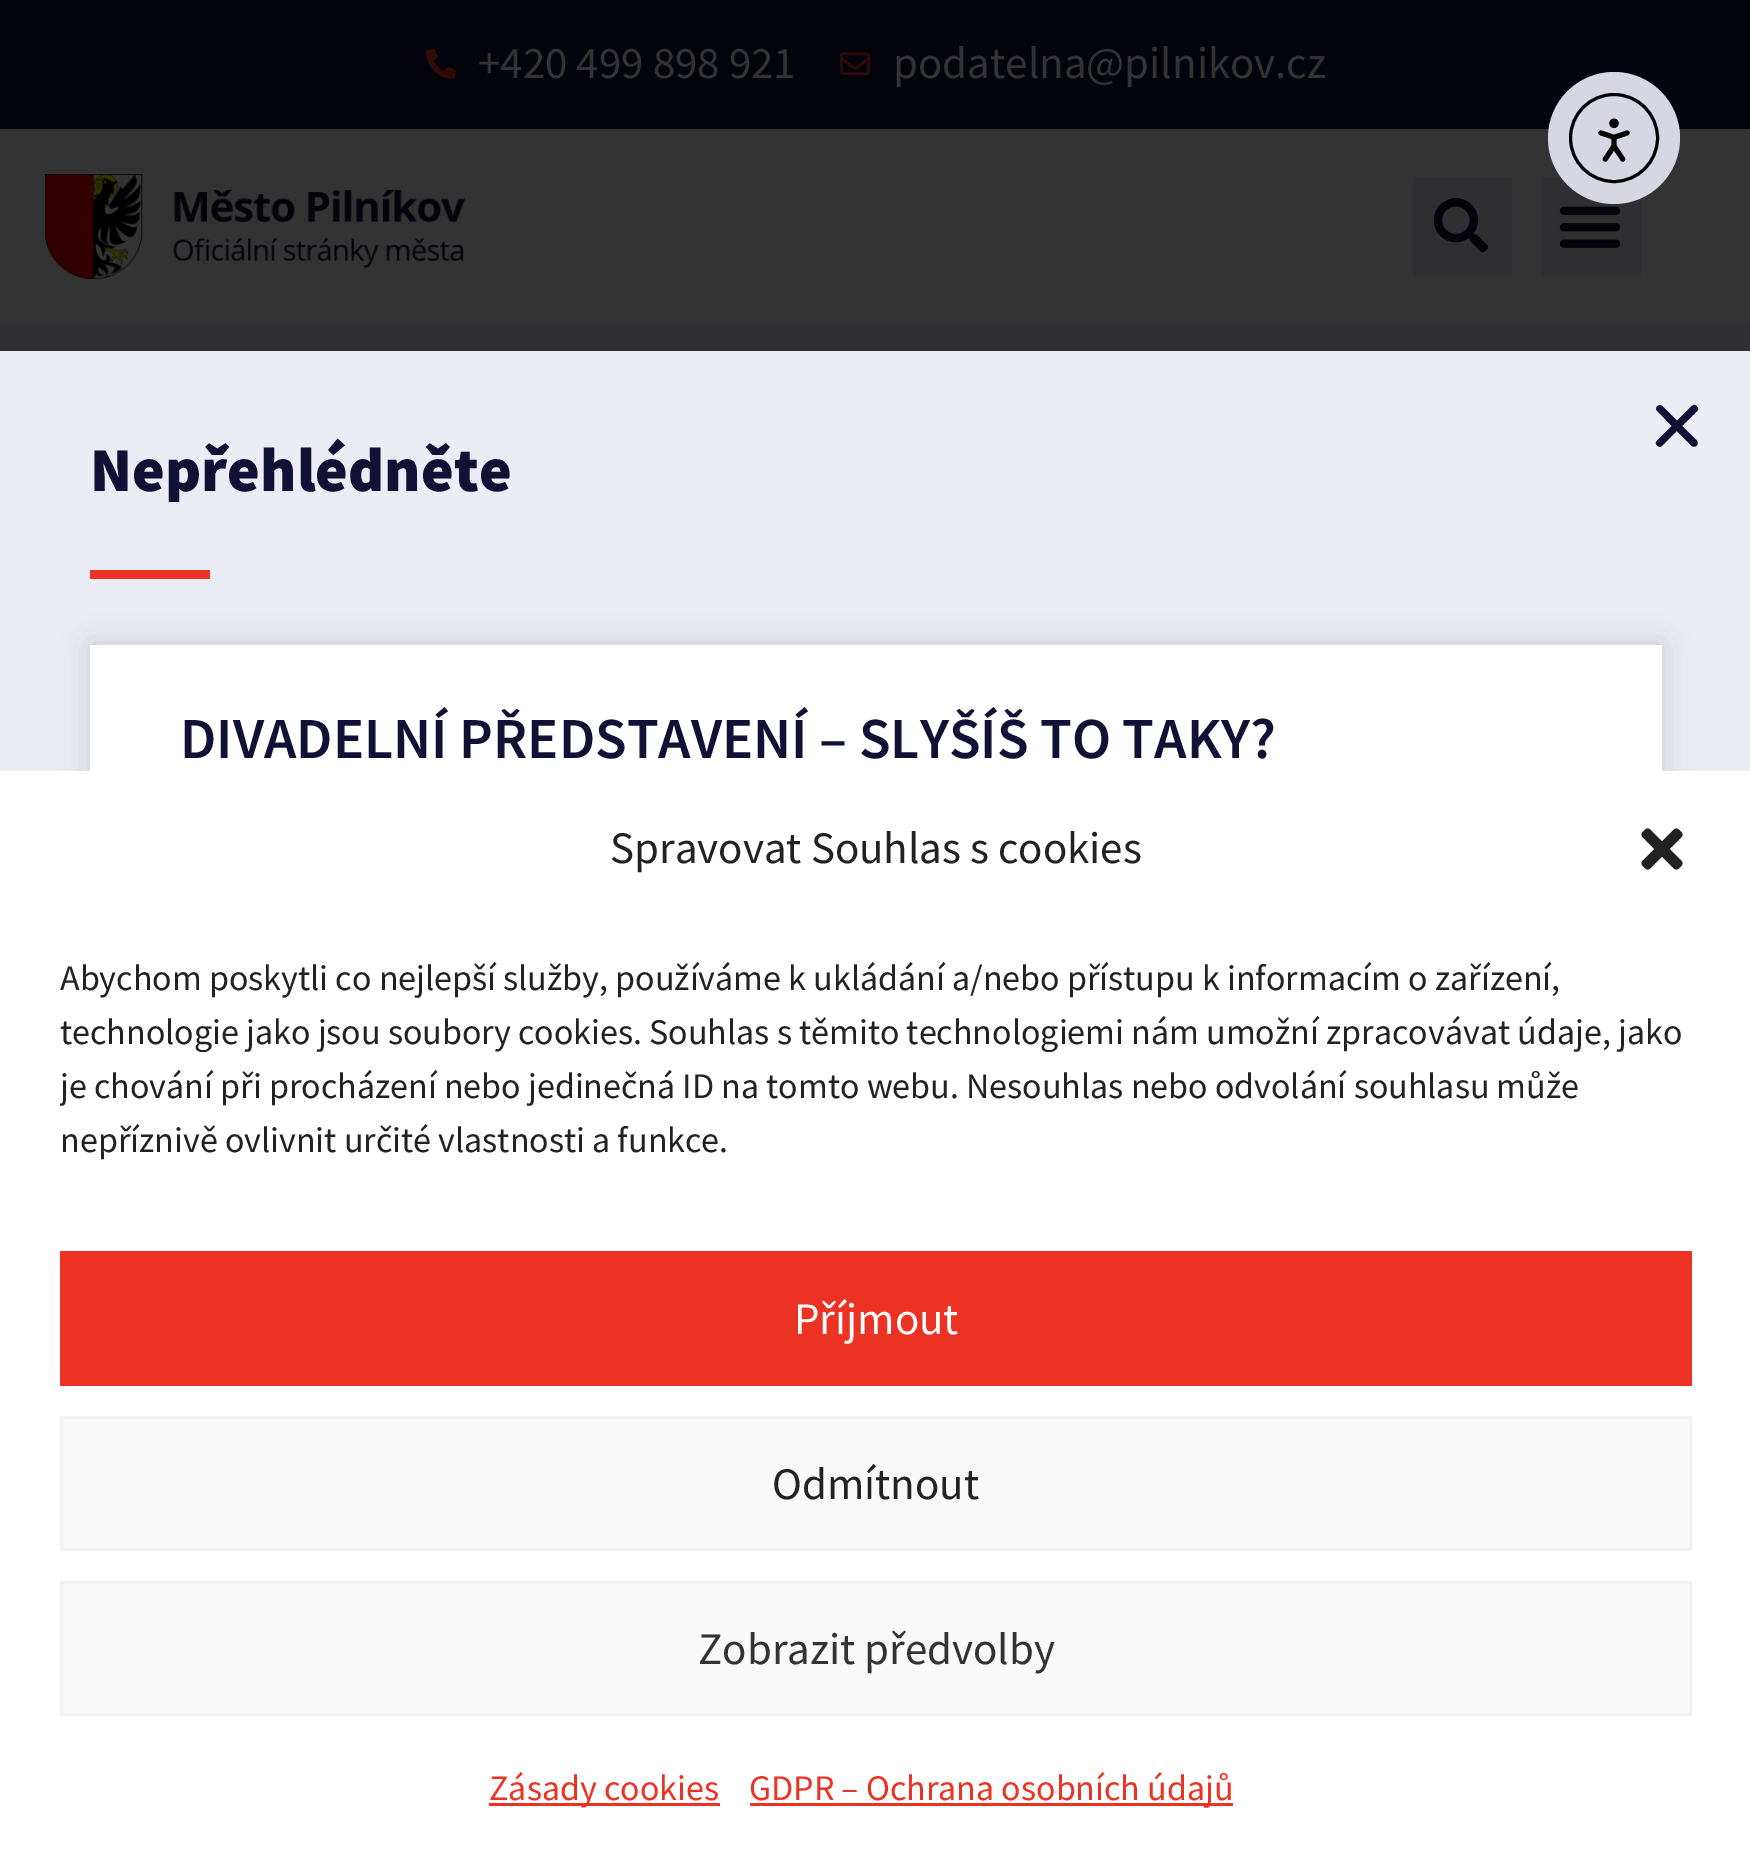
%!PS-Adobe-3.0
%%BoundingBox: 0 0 1750 1862
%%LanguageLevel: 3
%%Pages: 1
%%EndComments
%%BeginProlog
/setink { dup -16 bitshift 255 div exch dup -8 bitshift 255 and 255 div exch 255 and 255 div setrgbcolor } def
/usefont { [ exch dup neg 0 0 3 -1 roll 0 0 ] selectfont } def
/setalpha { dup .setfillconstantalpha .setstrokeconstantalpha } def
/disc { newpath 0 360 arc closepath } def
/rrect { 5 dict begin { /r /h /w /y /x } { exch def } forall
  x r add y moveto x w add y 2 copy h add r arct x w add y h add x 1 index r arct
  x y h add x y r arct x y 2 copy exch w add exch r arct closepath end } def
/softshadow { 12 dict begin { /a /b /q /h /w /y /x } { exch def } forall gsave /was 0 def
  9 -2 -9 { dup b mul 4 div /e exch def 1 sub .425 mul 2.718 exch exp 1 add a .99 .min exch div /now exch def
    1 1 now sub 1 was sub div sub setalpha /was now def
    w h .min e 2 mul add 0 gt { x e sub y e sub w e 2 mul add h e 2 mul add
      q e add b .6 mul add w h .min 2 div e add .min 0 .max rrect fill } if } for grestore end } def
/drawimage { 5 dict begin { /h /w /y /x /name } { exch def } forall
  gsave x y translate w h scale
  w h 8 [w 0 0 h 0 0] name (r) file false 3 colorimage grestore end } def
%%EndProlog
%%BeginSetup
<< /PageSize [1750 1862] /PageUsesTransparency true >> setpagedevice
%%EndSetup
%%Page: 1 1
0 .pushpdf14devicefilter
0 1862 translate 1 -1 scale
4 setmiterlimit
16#2F2F31 setink
0 0 1750 1862 rectfill
16#03030B setink
0 0 1750 129 rectfill
(img1.raw) 426 48 30 31 drawimage
/SourceSansPro-Regular 45 usefont
16#333333 setink
478 78 moveto (+420 499 898 921) show
(img2.raw) 840 52 30 23 drawimage
893 78 moveto (podatelna@pilnikov.cz) show
0 129 1750 195 rectfill
(img3.raw) 45 174 420 105 drawimage
16#2F2F31 setink
1413 177 99 99 rectfill
(img4.raw) 1433 198 56 55 drawimage
1542 177 99 99 rectfill
(img5.raw) 1559 206 62 42 drawimage
16#D7D7E4 setink
1614 138 66 disc fill
16#000000 setink
3 setlinewidth
1614 138 43.5 disc stroke
(img6.raw) 1598 118 32 44 drawimage
16#ECECF5 setink
0 351 1750 420 rectfill
(img7.raw) 1655 404 44 43 drawimage
/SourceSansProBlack-Black 62.5 usefont
16#111136 setink
90 491 moveto (Nepřehlédněte) show
16#EC3323 setink
90 570 120 9 rectfill
16#000000 setink
90 645 1572 777 0 15 0.15 softshadow
16#FFFFFF setink
90 645 1572 126 rectfill
/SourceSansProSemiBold-SemiBold 58.1 usefont
16#111136 setink
180 758 moveto (DIVADELNÍ PŘEDSTAVENÍ – SLYŠÍŠ TO TAKY?) show
16#FFFFFF setink
0 771 1750 1091 rectfill
/SourceSansPro-Regular 45 usefont
16#222222 setink
610 863 moveto (Spravovat Souhlas s cookies) show
(img8.raw) 1641 828 42 42 drawimage
/SourceSansPro-Regular 36 usefont
60 990 moveto (Abychom poskytli co nejlepší služby, používáme k ukládání a/nebo přístupu k informacím o zařízení,) show
60 1044 moveto (technologie jako jsou soubory cookies. Souhlas s těmito technologiemi nám umožní zpracovávat údaje, jako) show
gsave
60 951 1632 231 rectclip
60 1098 moveto (je chování při procházení nebo jedinečná ID na tomto webu. Nesouhlas nebo odvolání souhlasu může) show
grestore
60 1152 moveto (nepříznivě ovlivnit určité vlastnosti a funkce.) show
16#EC3323 setink
60 1251 1632 135 rectfill
/SourceSansPro-Regular 45 usefont
16#FFFFFF setink
794 1334 moveto (Příjmout) show
16#F9F9F9 setink
61.5 1417.5 moveto 1690.5 1417.5 lineto 1690.5 1549.5 lineto 61.5 1549.5 lineto closepath gsave fill grestore
16#F2F2F2 setink
stroke
16#222222 setink
772 1499 moveto (Odmítnout) show
16#F9F9F9 setink
61.5 1582.5 moveto 1690.5 1582.5 lineto 1690.5 1714.5 lineto 61.5 1714.5 lineto closepath gsave fill grestore
16#F2F2F2 setink
stroke
16#333333 setink
698 1664 moveto (Zobrazit předvolby) show
16#EC3323 setink
489 1803 231 3 rectfill
/SourceSansPro-Regular 36 usefont
489 1800 moveto (Zásady cookies) show
750 1803 483 3 rectfill
749 1800 moveto (GDPR – Ochrana osobních údajů) show
.poppdf14devicefilter showpage
%%EOF
